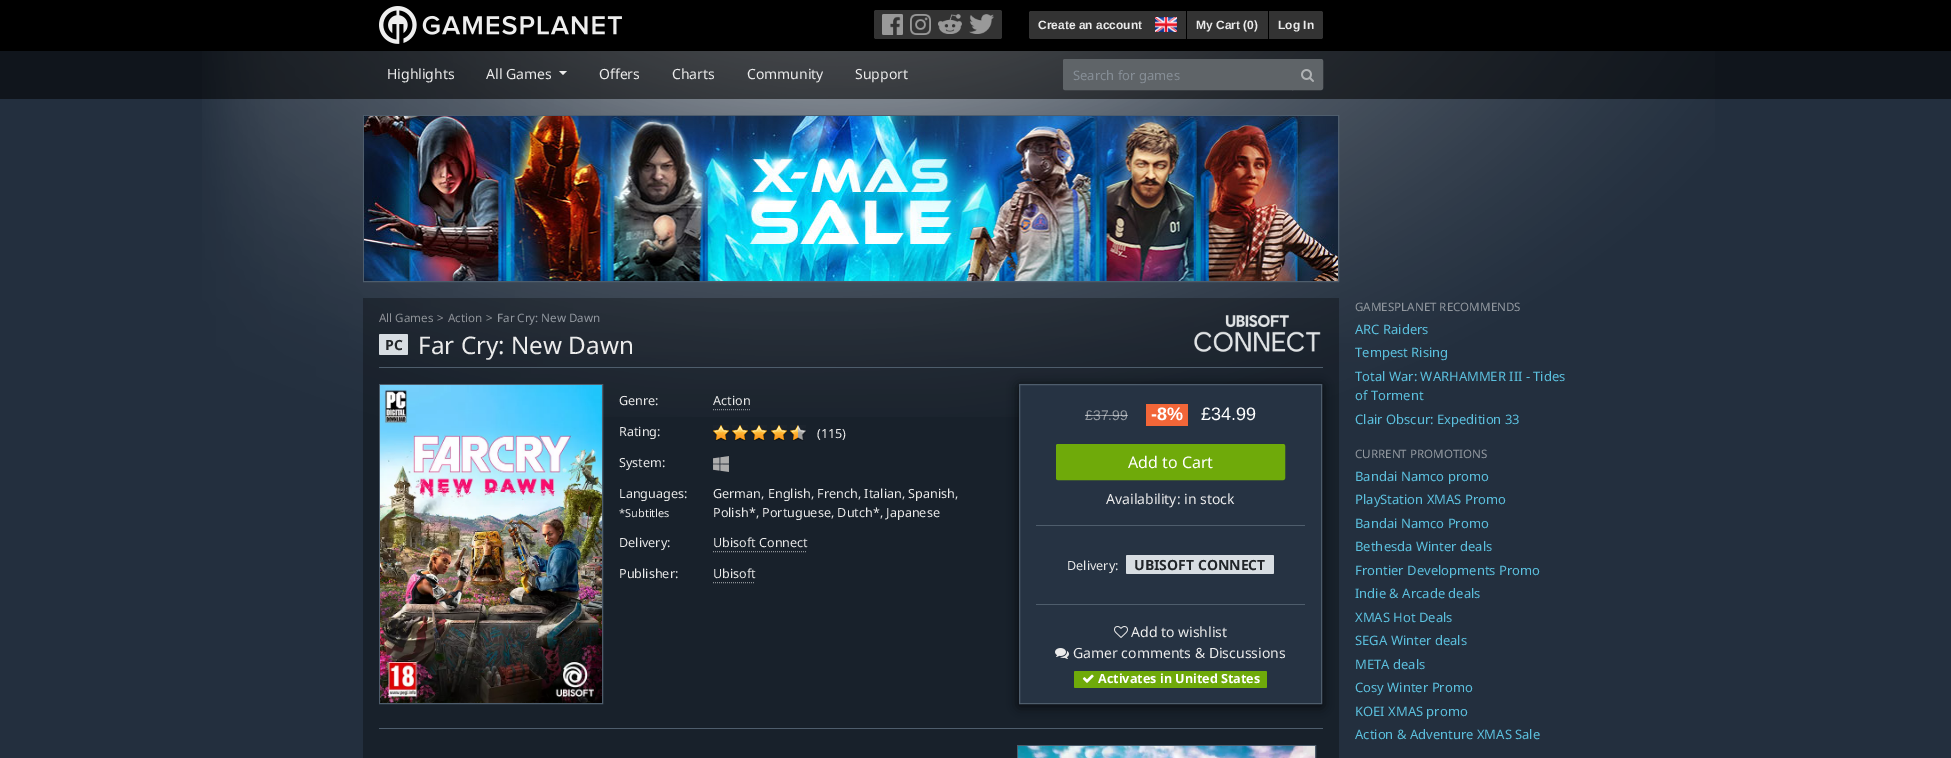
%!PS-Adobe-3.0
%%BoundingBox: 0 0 1951 758
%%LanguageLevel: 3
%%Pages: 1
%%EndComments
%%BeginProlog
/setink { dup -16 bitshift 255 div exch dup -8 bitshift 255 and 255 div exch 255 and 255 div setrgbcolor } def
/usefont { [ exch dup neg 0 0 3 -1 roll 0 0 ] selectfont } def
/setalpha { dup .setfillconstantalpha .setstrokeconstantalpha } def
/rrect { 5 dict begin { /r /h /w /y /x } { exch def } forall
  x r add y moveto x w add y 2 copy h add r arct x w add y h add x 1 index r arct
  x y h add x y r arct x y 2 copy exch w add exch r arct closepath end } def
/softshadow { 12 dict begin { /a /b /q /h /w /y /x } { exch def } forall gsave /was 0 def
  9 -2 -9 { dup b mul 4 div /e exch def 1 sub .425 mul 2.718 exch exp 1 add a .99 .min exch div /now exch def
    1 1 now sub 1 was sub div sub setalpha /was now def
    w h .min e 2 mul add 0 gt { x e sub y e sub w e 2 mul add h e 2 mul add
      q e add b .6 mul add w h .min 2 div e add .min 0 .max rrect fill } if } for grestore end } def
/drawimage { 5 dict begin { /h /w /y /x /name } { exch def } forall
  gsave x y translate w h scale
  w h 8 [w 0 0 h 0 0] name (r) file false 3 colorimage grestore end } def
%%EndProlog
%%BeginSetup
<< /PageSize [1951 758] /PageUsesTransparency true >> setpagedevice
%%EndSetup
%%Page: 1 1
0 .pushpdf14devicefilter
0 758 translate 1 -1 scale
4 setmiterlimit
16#232F3E setink
0 0 1951 758 rectfill
(img1.raw) 202 51 1513 366 drawimage
16#000000 setink
0 0 1951 51 rectfill
(img2.raw) 379 6 243 38 drawimage
16#333333 setink
876 10 moveto 907 10 lineto 907 39 lineto 876 39 lineto 875 39 874 38 874 37 curveto 874 12 lineto 874 11 875 10 876 10 curveto closepath fill
(img3.raw) 882 14 21 21 drawimage
907 10 58 29 rectfill
(img4.raw) 910 14 21 21 drawimage
965 10 moveto 1000 10 lineto 1001 10 1002 11 1002 12 curveto 1002 37 lineto 1002 38 1001 39 1000 39 curveto 965 39 lineto closepath fill
(img5.raw) 969 14 25 20 drawimage
(img6.raw) 938 14 24 20 drawimage
1031 11 moveto 1151 11 lineto 1151 39 lineto 1031 39 lineto 1030 39 1029 38 1029 37 curveto 1029 13 lineto 1029 12 1030 11 1031 11 curveto closepath fill
/LiberationSans-Bold 12 usefont
16#EBEBEB setink
1038 29 moveto (Create an account) show
16#333333 setink
1151 11 35 28 rectfill
(img7.raw) 1155 17 22 15 drawimage
1187 11 81 28 rectfill
16#EBEBEB setink
1196 29 moveto (My Cart \(0\)) show
16#333333 setink
1269 11 moveto 1321 11 lineto 1322 11 1323 12 1323 13 curveto 1323 37 lineto 1323 38 1322 39 1321 39 curveto 1269 39 lineto closepath fill
16#EBEBEB setink
1278 29 moveto (Log In) show
0.55 setalpha
16#000000 setink
0 51 1951 48 rectfill
/NotoSans-Regular 14 usefont
1 setalpha
16#EBEBEB setink
387 79 moveto (Highlights) show
486 79 moveto (All Games) show
559 71 moveto 567 71 lineto 563 75 lineto closepath fill
[
    [(Offers) 599 79]
    [(Charts) 672 79]
    [(Community) 747 79]
    [(Support) 855 79]
] { aload pop moveto show } forall
16#5F6468 setink
1065 59.5 moveto 1292.5 59.5 lineto 1292.5 89.5 lineto 1065 89.5 lineto 1064 89.5 1063.5 89 1063.5 88 curveto 1063.5 61 lineto 1063.5 60 1064 59.5 1065 59.5 curveto closepath gsave fill grestore
stroke
/NotoSans-Regular 13 usefont
16#868E96 setink
1073 80 moveto (Search for games) show
16#5F6468 setink
1292.5 59.5 moveto 1321 59.5 lineto 1322 59.5 1322.5 60 1322.5 61 curveto 1322.5 88 lineto 1322.5 89 1322 89.5 1321 89.5 curveto 1292.5 89.5 lineto closepath gsave fill grestore
stroke
(img8.raw) 1301 69 13 13 drawimage
16#4E5D6C setink
363.5 115.5 975 166 rectstroke
(img9.raw) 364 116 974 165 drawimage
0.3 setalpha
16#000000 setink
363 298 976 460 rectfill
/NotoSans-Regular 11.6 usefont
1 setalpha
16#8F9398 setink
[
    [(All Games) 379 322]
    [(>) 437 322]
    [(Action) 448 322]
    [(>) 486 322]
] { aload pop moveto show } forall
16#9399A0 setink
497 322 moveto (Far Cry: New Dawn) show
16#D7DDE2 setink
379 334 29 21 1.5 rrect fill
/NotoSans-Bold 14 usefont
16#212529 setink
385 350 moveto (PC) show
16#4E5D6C setink
379 367 944 1 rectfill
/NotoSans-Regular 24.25 usefont
16#EBEBEB setink
418 354 moveto (Far Cry: New Dawn) show
(img10.raw) 1194 315 127 37 drawimage
16#4E5D6C setink
379.5 384.5 223 319 rectstroke
(img11.raw) 380 385 222 318 drawimage
/NotoSans-Regular 12.6 usefont
16#EBEBEB setink
619 405 moveto (Genre:) show
713 405 moveto (Action) show
16#8E9297 setink
[1 1] 0 setdash
713 409.5 moveto 750 409.5 lineto stroke
16#EBEBEB setink
619 436 moveto (Rating:) show
(img12.raw) 713 425 16 16 drawimage
(img13.raw) 732 425 16 16 drawimage
(img14.raw) 751 425 16 16 drawimage
(img15.raw) 771 425 16 16 drawimage
(img16.raw) 790 425 16 16 drawimage
817 438 moveto (\(115\)) show
619 467 moveto (System:) show
(img17.raw) 713 456 16 16 drawimage
619 498 moveto (Languages:) show
/NotoSans-Regular 11 usefont
619 517 moveto (*Subtitles) show
/NotoSans-Regular 12.6 usefont
[
    [(German, English, French, Italian, Spanish,) 713 498]
    [(Polish*, Portuguese, Dutch*, Japanese) 713 517]
    [(Delivery:) 619 547]
    [(Ubisoft Connect) 713 547]
] { aload pop moveto show } forall
16#8C9095 setink
713 551.5 moveto 807 551.5 lineto stroke
16#EBEBEB setink
619 578 moveto (Publisher:) show
713 578 moveto (Ubisoft) show
16#8C9095 setink
713 582.5 moveto 755 582.5 lineto stroke
16#000000 setink
1019 386 303 320 0 6 0.75 softshadow
16#263343 setink
1019.5 384.5 moveto 1321.5 384.5 lineto 1321.5 703.5 lineto 1019.5 703.5 lineto closepath gsave fill grestore
16#4E5D6C setink
[] 0 setdash
stroke
/LiberationSans-Regular 14 usefont
16#9399A0 setink
1085 420 moveto (£37.99) show
0.5 setalpha
16#FFFFFF setink
1085 415 43 1 rectfill
1 setalpha
16#F26638 setink
1146 404 42 22 rectfill
/LiberationSans-Bold 18 usefont
16#FFFFFF setink
1151 420 moveto (-8%) show
/LiberationSans-Regular 18 usefont
1201 420 moveto (£34.99) show
16#6FAA0A setink
1056.5 444.5 228 35 1.5 rrect gsave fill grestore
stroke
/NotoSans-Regular 16 usefont
16#FFFFFF setink
1128 468 moveto (Add to Cart) show
/NotoSans-Regular 14 usefont
16#EBEBEB setink
1106 504 moveto (Availability: in stock) show
16#4E5D6C setink
1036 525 269 1 rectfill
/NotoSans-Regular 12.6 usefont
16#EBEBEB setink
1067 570 moveto (Delivery:) show
16#D7DDE2 setink
1126 555 148 19 1.5 rrect fill
/NotoSans-Bold 14 usefont
16#212529 setink
1134 570 moveto (UBISOFT CONNECT) show
16#4E5D6C setink
1036 604 269 1 rectfill
(img18.raw) 1114 626 14 12 drawimage
/NotoSans-Regular 14 usefont
16#EBEBEB setink
1131 637 moveto (Add to wishlist) show
(img19.raw) 1055 648 14 11 drawimage
1073 658 moveto (Gamer comments & Discussions) show
16#6FAA0A setink
1074 671 193 17 1.5 rrect fill
(img20.raw) 1082 674 12 9 drawimage
/NotoSans-Bold 12.6 usefont
16#FFFFFF setink
1098 683 moveto (Activates in United States) show
16#4E5D6C setink
379 728 944 1 rectfill
1017.5 745.5 298 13 rectstroke
(img21.raw) 1018 746 297 12 drawimage
/NotoSans-Regular 11.6 usefont
16#9399A0 setink
1355 311 moveto (GAMESPLANET RECOMMENDS) show
/NotoSans-Regular 13 usefont
16#5BC0DE setink
[
    [(ARC Raiders) 1355 334]
    [(Tempest Rising) 1355 357]
    [(Total War: WARHAMMER III - Tides) 1355 381]
    [(of Torment) 1355 400]
    [(Clair Obscur: Expedition 33) 1355 424]
] { aload pop moveto show } forall
/NotoSans-Regular 11.6 usefont
16#9399A0 setink
1355 458 moveto (CURRENT PROMOTIONS) show
/NotoSans-Regular 13 usefont
16#5BC0DE setink
[
    [(Bandai Namco promo) 1355 481]
    [(PlayStation XMAS Promo) 1355 504]
    [(Bandai Namco Promo) 1355 528]
    [(Bethesda Winter deals) 1355 551]
    [(Frontier Developments Promo) 1355 575]
    [(Indie & Arcade deals) 1355 598]
    [(XMAS Hot Deals) 1355 622]
    [(SEGA Winter deals) 1355 645]
    [(META deals) 1355 669]
    [(Cosy Winter Promo) 1355 692]
    [(KOEI XMAS promo) 1355 716]
    [(Action & Adventure XMAS Sale) 1355 739]
] { aload pop moveto show } forall
.poppdf14devicefilter showpage
%%EOF
